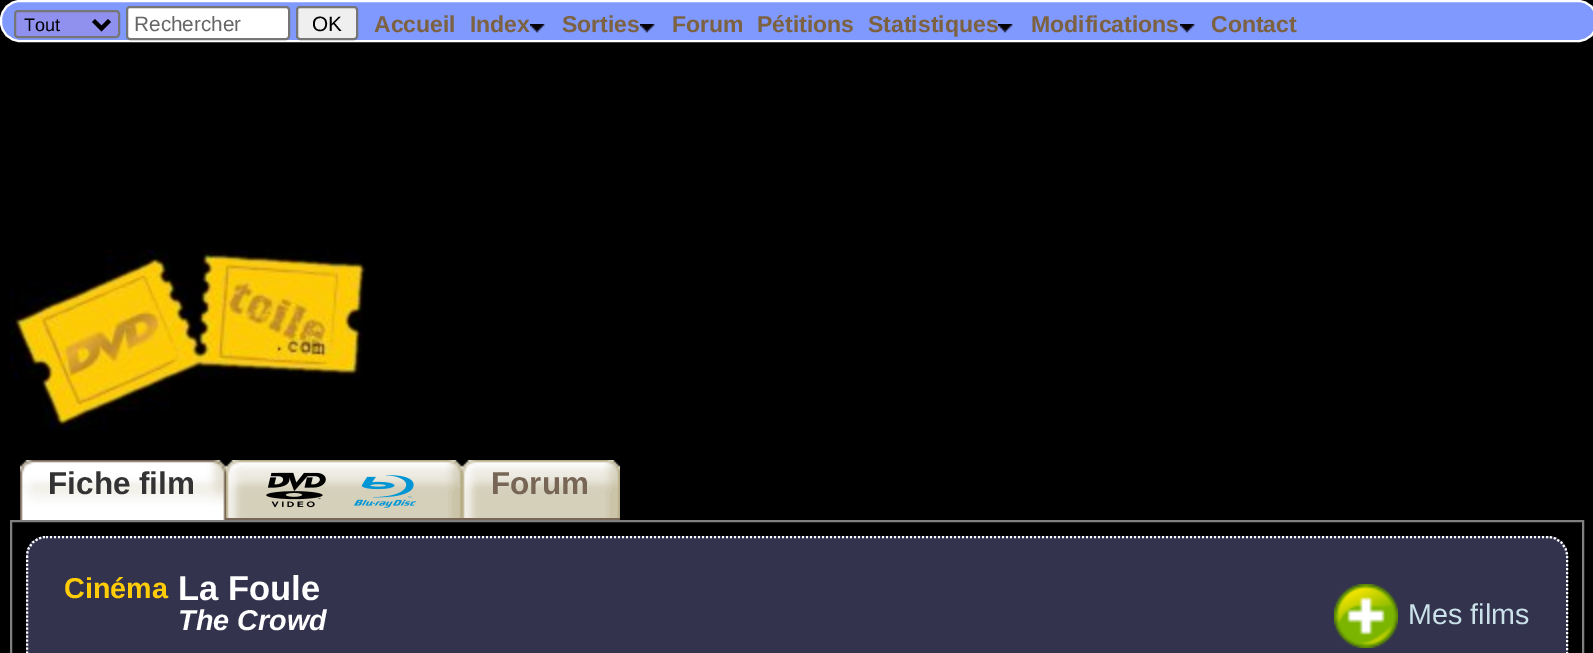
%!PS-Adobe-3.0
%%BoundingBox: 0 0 1593 653
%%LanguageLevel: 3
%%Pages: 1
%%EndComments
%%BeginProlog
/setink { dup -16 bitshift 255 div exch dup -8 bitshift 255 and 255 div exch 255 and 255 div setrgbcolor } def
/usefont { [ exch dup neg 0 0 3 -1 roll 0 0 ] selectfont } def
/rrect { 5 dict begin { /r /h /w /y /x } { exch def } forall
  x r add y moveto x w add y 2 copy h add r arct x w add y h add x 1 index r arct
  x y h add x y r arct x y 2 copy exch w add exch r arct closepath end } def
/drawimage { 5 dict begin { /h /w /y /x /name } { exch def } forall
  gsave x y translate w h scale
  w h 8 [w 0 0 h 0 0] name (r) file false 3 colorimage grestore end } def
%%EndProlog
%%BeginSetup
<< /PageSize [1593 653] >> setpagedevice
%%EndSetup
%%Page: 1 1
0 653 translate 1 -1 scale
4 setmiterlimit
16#000000 setink
0 0 1593 653 rectfill
16#8099FE setink
1 1 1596 40 19 rrect gsave fill grestore
16#FFFFFF setink
2 setlinewidth
stroke
16#9090EE setink
15 11 104 26 3 rrect gsave fill grestore
16#767676 setink
stroke
16#000000 setink
4 setlinewidth
93.5 20.5 moveto 101.5 28.5 lineto 109.5 20.5 lineto stroke
/LiberationSans-Regular 18 usefont
24 31 moveto (Tout) show
16#FFFFFF setink
127 7 162 32 3 rrect gsave fill grestore
16#767676 setink
2 setlinewidth
stroke
/LiberationSans-Regular 20.75 usefont
16#666666 setink
134 31 moveto (Rechercher) show
16#EFEFEF setink
297 7 60 32 3 rrect gsave fill grestore
16#767676 setink
stroke
16#000000 setink
312 31 moveto (OK) show
/LiberationSans-Bold 23 usefont
16#7C6240 setink
374 32 moveto (Accueil) show
470 32 moveto (Index) show
(img1.raw) 530 24 15 9 drawimage
562 32 moveto (Sorties) show
(img2.raw) 640 24 15 9 drawimage
[
    [(Forum) 672 32]
    [(Pétitions) 757 32]
    [(Statistiques) 868 32]
] { aload pop moveto show } forall
(img3.raw) 998 24 15 9 drawimage
1031 32 moveto (Modifications) show
(img2.raw) 1180 24 15 9 drawimage
1211 32 moveto (Contact) show
(img4.raw) 10 250 356 180 drawimage
(img5.raw) 20 460 18 60 drawimage
(img6.raw) 38 460 188 60 drawimage
/LiberationSans-Bold 31.5 usefont
16#333333 setink
48 494 moveto (Fiche film) show
(img7.raw) 226 460 18 58 drawimage
16#776655 setink
226 518 394 2 rectfill
(img8.raw) 244 460 218 58 drawimage
(img9.raw) 266 472 60 36 drawimage
(img10.raw) 354 475 62 33 drawimage
(img7.raw) 462 460 18 58 drawimage
(img11.raw) 480 460 140 58 drawimage
491 494 moveto (Forum) show
16#808080 setink
11 521 1572 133 rectstroke
16#33334D setink
26 536 1542 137 20 rrect fill
16#FFFFFF setink
[2 2] 0 setdash
46 537 moveto 1548 537 lineto 1558.5 537 1567 545.5 1567 556 curveto 1567 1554 lineto 1567 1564.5 1558.5 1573 1548 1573 curveto 46 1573 lineto 35.5 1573 27 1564.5 27 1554 curveto 27 556 lineto 27 545.5 35.5 537 46 537 curveto closepath stroke
/LiberationSans-Bold 28.75 usefont
16#FECD07 setink
64 598 moveto (Cinéma) show
/LiberationSans-Bold 34.5 usefont
16#FFFFFF setink
178 600 moveto (La Foule) show
/LiberationSans-BoldItalic 28.75 usefont
178 630 moveto (The Crowd) show
(img12.raw) 1334 584 64 64 drawimage
/LiberationSans-Regular 28.75 usefont
16#CBE2EA setink
1408 624 moveto (Mes films) show
showpage
%%EOF
